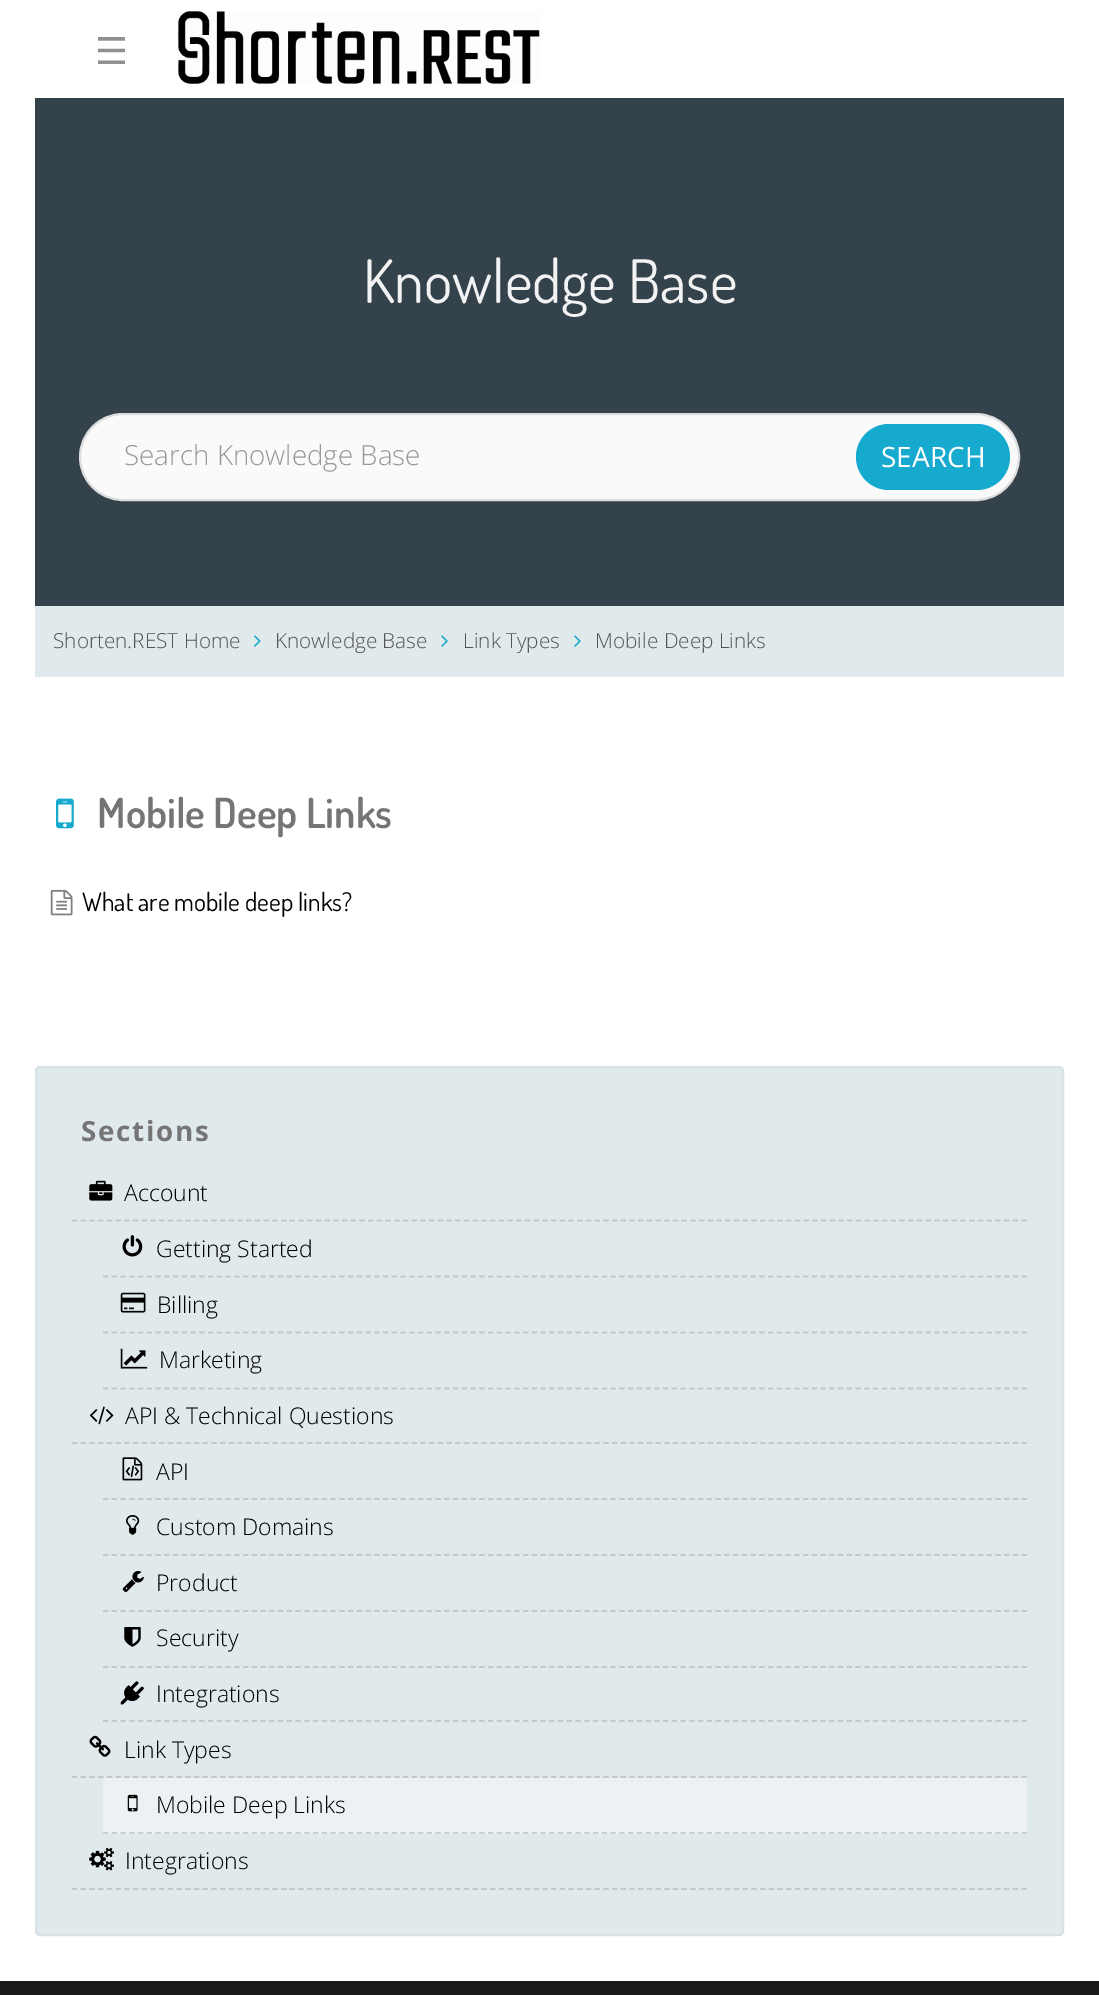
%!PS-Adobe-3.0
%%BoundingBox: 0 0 1099 1995
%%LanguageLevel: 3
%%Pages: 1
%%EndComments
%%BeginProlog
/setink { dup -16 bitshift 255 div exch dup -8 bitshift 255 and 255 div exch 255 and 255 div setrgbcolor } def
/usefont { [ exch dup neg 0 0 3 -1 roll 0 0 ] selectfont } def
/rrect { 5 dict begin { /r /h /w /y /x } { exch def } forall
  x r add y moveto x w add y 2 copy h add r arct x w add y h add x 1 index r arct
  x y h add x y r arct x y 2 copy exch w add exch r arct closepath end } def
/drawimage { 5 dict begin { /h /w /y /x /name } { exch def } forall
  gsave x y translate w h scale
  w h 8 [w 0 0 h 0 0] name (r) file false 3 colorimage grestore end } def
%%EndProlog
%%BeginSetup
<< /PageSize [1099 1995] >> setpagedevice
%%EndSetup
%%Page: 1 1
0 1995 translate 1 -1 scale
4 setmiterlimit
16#FFFFFF setink
0 0 1099 1995 rectfill
/DejaVuSans-Regular 37 usefont
16#909090 setink
95 64 moveto (☰) show
(img1.raw) 177 11 363 73 drawimage
16#34424C setink
35 98 1029 508 rectfill
/Dosis-Regular 60 usefont
16#F2F2F2 setink
363 303 moveto (Knowledge Base) show
16#FAFAFA setink
80 414 939 86 43 rrect gsave fill grestore
16#DDDDDD setink
2 setlinewidth
stroke
/OpenSans-Light 27.75 usefont
16#999999 setink
124 465 moveto (Search Knowledge Base) show
16#17AACF setink
856 424 154 66 33 rrect fill
/OpenSans-Regular 28 usefont
16#FFFFFF setink
881 467 moveto (SEARCH) show
16#E0E9EB setink
35 606 1029 71 rectfill
/OpenSans-Light 20.75 usefont
16#555555 setink
53 648 moveto (Shorten.REST Home) show
(img2.raw) 253 635 8 12 drawimage
275 648 moveto (Knowledge Base) show
(img3.raw) 441 635 7 12 drawimage
463 648 moveto (Link Types) show
(img3.raw) 574 635 7 12 drawimage
595 648 moveto (Mobile Deep Links) show
(img4.raw) 56 798 18 31 drawimage
/Dosis-SemiBold 41.5 usefont
16#757575 setink
97 828 moveto (Mobile Deep Links) show
(img5.raw) 50 889 23 27 drawimage
/Dosis-Regular 25.4 usefont
16#000000 setink
82 911 moveto (What are mobile deep links?) show
16#E0E9EB setink
36 1067 1027 868 4 rrect gsave fill grestore
16#D7E2E5 setink
stroke
/OpenSans-Bold 27.75 usefont
16#757575 setink
81 1141 moveto 1.75 0 (Sections) ashow
16#C3CACB setink
1.8 setlinewidth
[5.25 3.46] 0 setdash
72 1220.5 moveto 1027 1220.5 lineto stroke
(img6.raw) 89 1180 24 21 drawimage
/OpenSans-Light 23 usefont
16#000000 setink
124 1201 moveto (Account) show
16#C3CACB setink
[5.25 3.5] 0 setdash
103 1276.5 moveto 1027 1276.5 lineto stroke
(img7.raw) 122 1235 21 22 drawimage
16#000000 setink
156 1257 moveto (Getting Started) show
16#C3CACB setink
103 1332.5 moveto 1027 1332.5 lineto stroke
(img8.raw) 120 1292 26 21 drawimage
16#000000 setink
157 1313 moveto (Billing) show
16#C3CACB setink
103 1388.5 moveto 1027 1388.5 lineto stroke
(img9.raw) 120 1348 28 21 drawimage
16#000000 setink
159 1368 moveto (Marketing) show
16#C3CACB setink
[5.25 3.46] 0 setdash
72 1443 moveto 1027 1443 lineto stroke
(img10.raw) 89 1406 25 19 drawimage
16#000000 setink
125 1424 moveto (API & Technical Questions) show
16#C3CACB setink
[5.25 3.5] 0 setdash
103 1499 moveto 1027 1499 lineto stroke
(img11.raw) 122 1457 21 24 drawimage
16#000000 setink
156 1480 moveto (API) show
16#C3CACB setink
103 1555 moveto 1027 1555 lineto stroke
(img12.raw) 126 1515 14 20 drawimage
16#000000 setink
156 1535 moveto (Custom Domains) show
16#C3CACB setink
103 1611 moveto 1027 1611 lineto stroke
(img13.raw) 122 1571 22 22 drawimage
16#000000 setink
156 1591 moveto (Product) show
16#C3CACB setink
103 1667 moveto 1027 1667 lineto stroke
(img14.raw) 124 1627 17 20 drawimage
16#000000 setink
156 1646 moveto (Security) show
16#C3CACB setink
103 1721 moveto 1027 1721 lineto stroke
(img15.raw) 120 1681 24 24 drawimage
16#000000 setink
156 1702 moveto (Integrations) show
16#C3CACB setink
[5.25 3.46] 0 setdash
72 1777 moveto 1027 1777 lineto stroke
(img16.raw) 89 1735 22 22 drawimage
16#000000 setink
124 1758 moveto (Link Types) show
16#EDF1F3 setink
103 1778 924 56 rectfill
16#CCCFD1 setink
[5.25 3.5] 0 setdash
103 1833 moveto 1027 1833 lineto stroke
(img17.raw) 127 1794 11 18 drawimage
16#000000 setink
156 1813 moveto (Mobile Deep Links) show
16#C3CACB setink
[5.25 3.46] 0 setdash
72 1889 moveto 1027 1889 lineto stroke
(img18.raw) 89 1847 25 24 drawimage
16#000000 setink
125 1869 moveto (Integrations) show
16#191919 setink
0 1981 1099 14 rectfill
showpage
%%EOF
